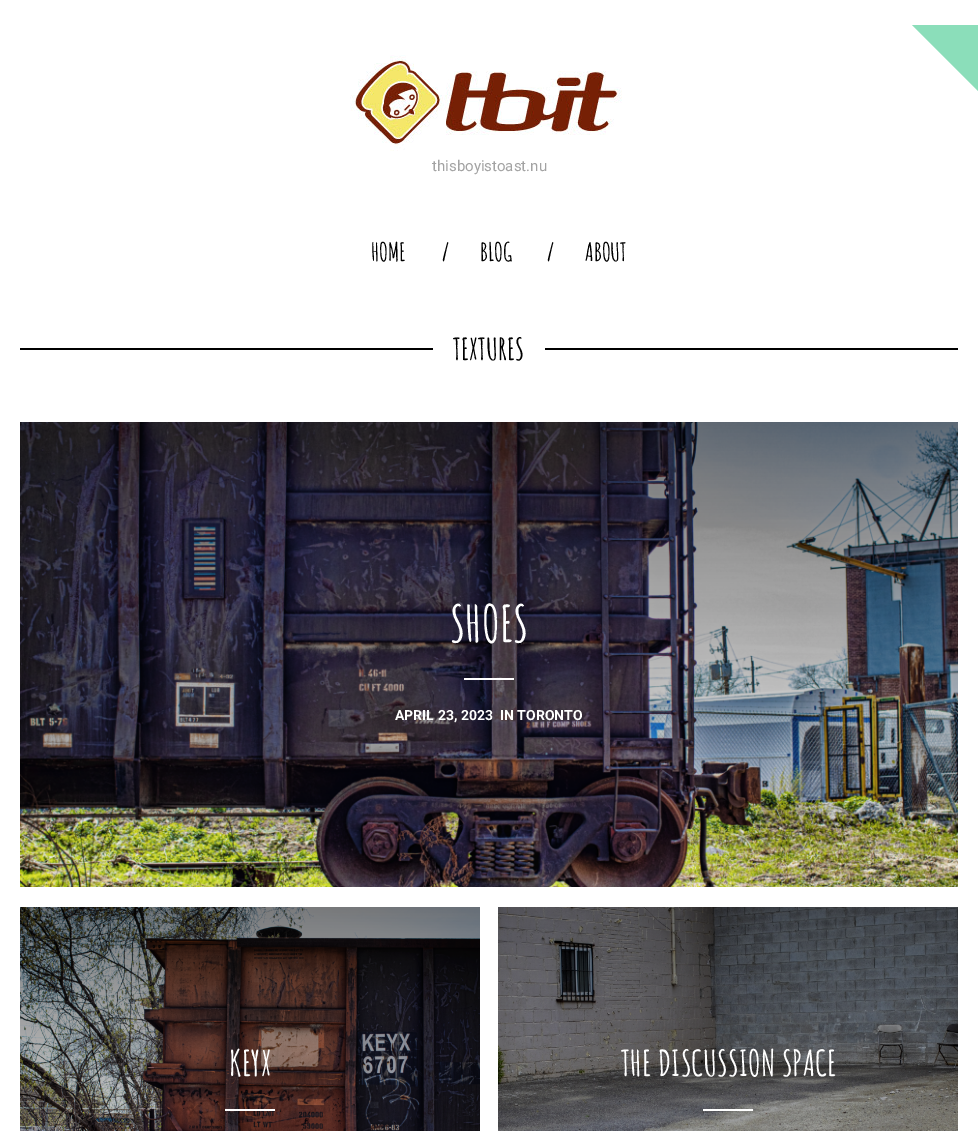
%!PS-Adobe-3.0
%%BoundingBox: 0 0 978 1131
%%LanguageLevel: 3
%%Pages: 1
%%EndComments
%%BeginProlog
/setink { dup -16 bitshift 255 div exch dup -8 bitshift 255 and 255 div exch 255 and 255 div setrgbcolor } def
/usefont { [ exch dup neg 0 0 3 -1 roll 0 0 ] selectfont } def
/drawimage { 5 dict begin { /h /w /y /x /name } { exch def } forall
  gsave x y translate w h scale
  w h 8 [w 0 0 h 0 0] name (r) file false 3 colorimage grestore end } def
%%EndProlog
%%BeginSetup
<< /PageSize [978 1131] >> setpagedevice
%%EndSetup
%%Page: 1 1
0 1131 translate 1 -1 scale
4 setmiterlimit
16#FFFFFF setink
0 0 978 1131 rectfill
16#8BDEBA setink
978 25 moveto 978 91 lineto 912 25 lineto closepath fill
(img1.raw) 350 55 272 96 drawimage
/Roboto-Regular 15 usefont
16#A3A3A3 setink
432 171 moveto (thisboyistoast.nu) show
/AmaticSC-Bold 25 usefont
16#000000 setink
[
    [(HOME) 371 261]
    [(⁄) 441 261]
    [(BLOG) 480 261]
    [(⁄) 546 261]
    [(ABOUT) 585 261]
] { aload pop moveto show } forall
20 348 938 2 rectfill
16#FFFFFF setink
433 348 112 2 rectfill
/AmaticSC-Bold 30 usefont
16#000000 setink
453 360 moveto (TEXTURES) show
(img2.raw) 20 422 938 465 drawimage
/AmaticSC-Bold 50 usefont
16#FFFFFF setink
450 642 moveto (SHOES) show
464 678 50 2 rectfill
/Roboto-Bold 14 usefont
395 720 moveto (APRIL 23, 2023) show
500 720 moveto (IN TORONTO) show
(img3.raw) 20 907 460 224 drawimage
/AmaticSC-Bold 35.25 usefont
229 1076 moveto (KEYX) show
225 1109 50 2 rectfill
(img4.raw) 498 907 460 224 drawimage
621 1076 moveto (THE DISCUSSION SPACE) show
703 1109 50 2 rectfill
showpage
%%EOF
